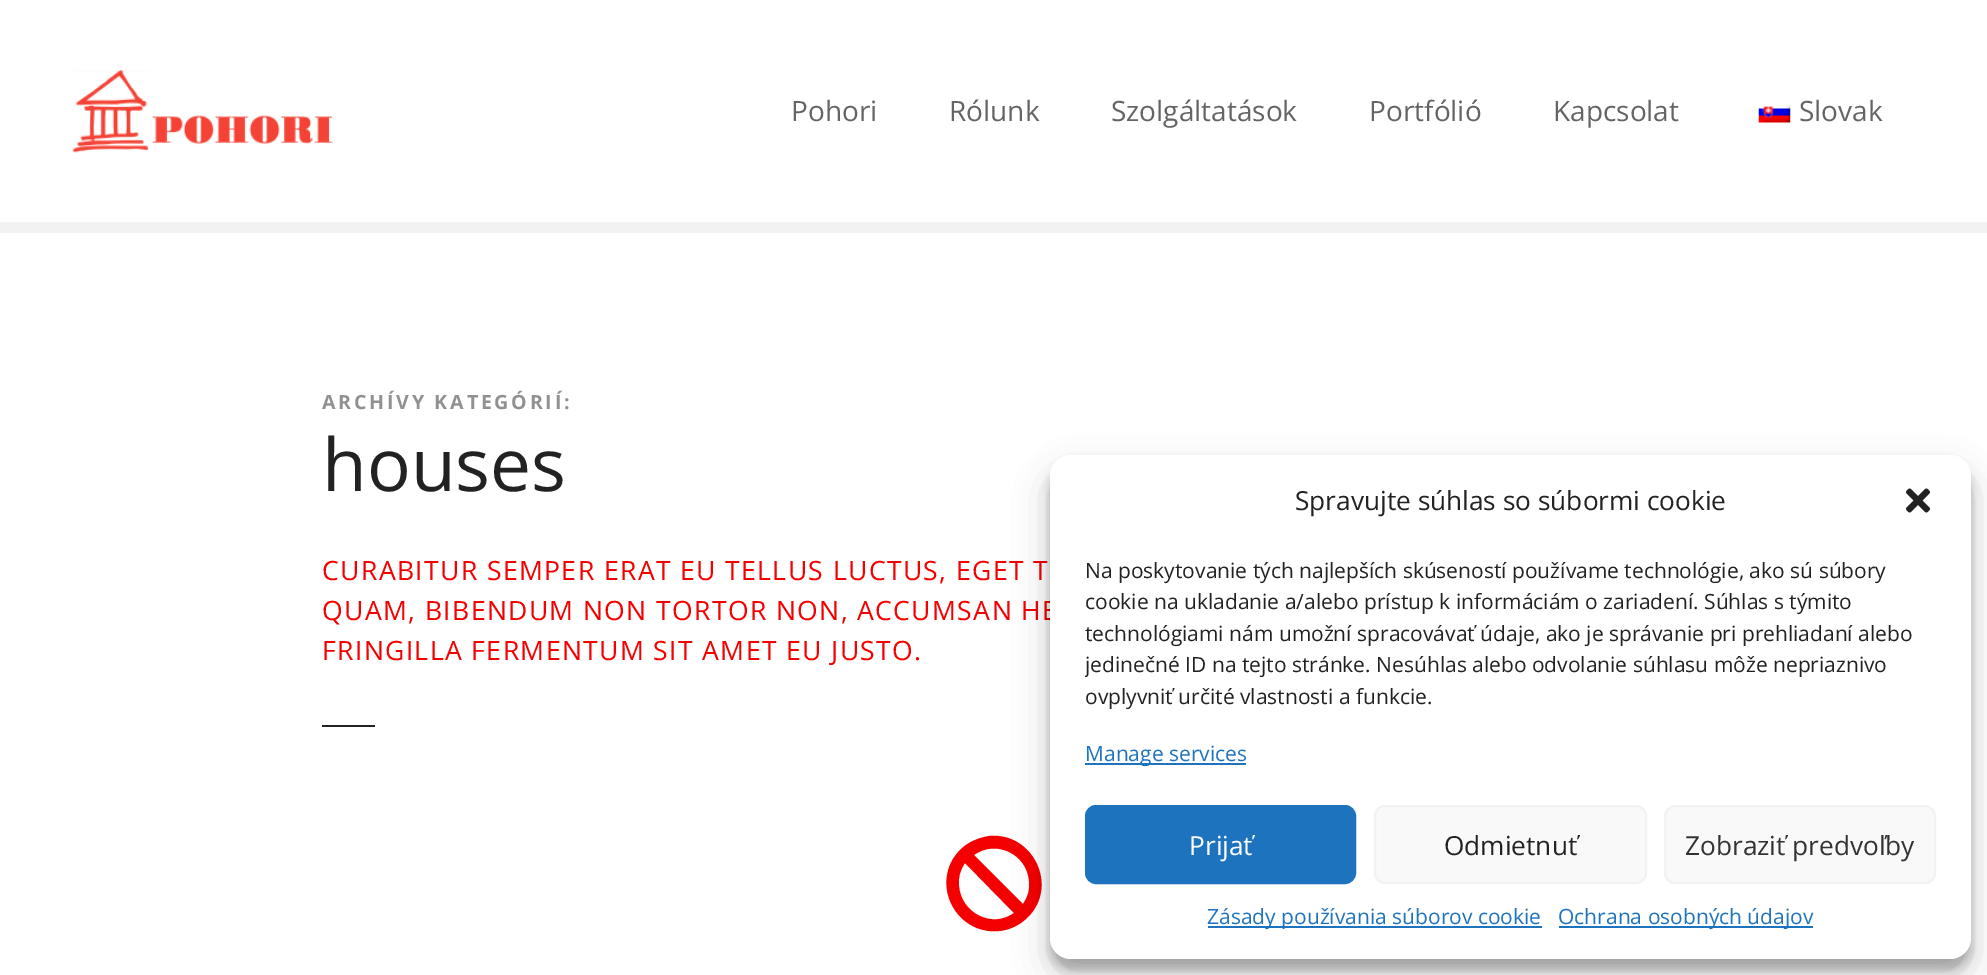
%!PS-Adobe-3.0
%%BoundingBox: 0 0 1987 975
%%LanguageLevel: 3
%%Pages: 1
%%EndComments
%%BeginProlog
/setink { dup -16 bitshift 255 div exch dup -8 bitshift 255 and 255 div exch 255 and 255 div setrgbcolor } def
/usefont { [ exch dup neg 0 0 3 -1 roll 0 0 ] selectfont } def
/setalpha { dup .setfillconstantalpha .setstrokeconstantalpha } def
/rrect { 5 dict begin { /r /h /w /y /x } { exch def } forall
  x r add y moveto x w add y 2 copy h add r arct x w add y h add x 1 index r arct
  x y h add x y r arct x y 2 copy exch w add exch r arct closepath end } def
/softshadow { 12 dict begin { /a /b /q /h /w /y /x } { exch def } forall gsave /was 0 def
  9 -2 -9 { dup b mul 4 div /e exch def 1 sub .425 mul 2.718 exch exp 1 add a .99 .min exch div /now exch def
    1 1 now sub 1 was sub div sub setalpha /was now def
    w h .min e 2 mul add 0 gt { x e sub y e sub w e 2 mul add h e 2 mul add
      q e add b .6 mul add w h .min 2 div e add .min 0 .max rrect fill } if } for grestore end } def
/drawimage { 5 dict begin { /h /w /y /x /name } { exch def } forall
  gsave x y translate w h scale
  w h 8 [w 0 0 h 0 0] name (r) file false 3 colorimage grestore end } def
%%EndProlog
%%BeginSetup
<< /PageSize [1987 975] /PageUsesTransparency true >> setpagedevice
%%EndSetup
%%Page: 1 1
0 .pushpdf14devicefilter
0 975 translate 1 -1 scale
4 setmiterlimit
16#FFFFFF setink
0 0 1987 975 rectfill
(img1.raw) 72 70 261 83 drawimage
/OpenSans-Regular 28 usefont
16#646464 setink
[
    [(Pohori) 791 121]
    [(Rólunk) 949 121]
    [(Szolgáltatások) 1111 121]
    [(Portfólió) 1369 121]
    [(Kapcsolat) 1553 121]
] { aload pop moveto show } forall
(img2.raw) 1758 104 33 19 drawimage
1799 121 moveto (Slovak) show
16#F2F2F2 setink
0 222 1987 11 rectfill
/OpenSans-Bold 19.6 usefont
16#919191 setink
322 409 moveto 2.75 0 (ARCHÍVY KATEGÓRIÍ:) ashow
/OpenSans-Regular 73 usefont
16#222222 setink
322 491 moveto (houses) show
/OpenSans-Regular 26.6 usefont
16#F40000 setink
322 580 moveto 1.35 0 (CURABITUR SEMPER ERAT EU TELLUS LUCTUS, EGET T) ashow
322 620 moveto 1.35 0 (QUAM, BIBENDUM NON TORTOR NON, ACCUMSAN HE) ashow
322 660 moveto 1.35 0 (FRINGILLA FERMENTUM SIT AMET EU JUSTO.) ashow
16#222222 setink
322 725 53 2 rectfill
16#F40000 setink
960 850 moveto 968 842 978 838 989 836 curveto 1033 832 1059 886 1028 917 curveto 1020 925 1010 930 999 931 curveto 955 935 929 882 960 850 curveto closepath 1029 881 moveto 1027 854 996 839 974 855 curveto 1023 904 lineto 1028 897 1030 890 1029 881 curveto closepath 959 886 moveto 961 913 992 929 1014 913 curveto 965 863 lineto 960 870 958 878 959 886 curveto closepath fill
16#000000 setink
1050 466 921 504 21 5 0.23 softshadow
1050 473 921 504 21 17.5 0.19 softshadow
16#FFFFFF setink
1050 455 921 504 21 rrect fill
/OpenSans-Regular 26.25 usefont
16#222222 setink
1295 510 moveto (Spravujte súhlas so súbormi cookie) show
(img3.raw) 1906 488 24 25 drawimage
/OpenSans-Regular 21 usefont
[
    [(Na poskytovanie tých najlepších skúseností používame technológie, ako sú súbory) 1085 578]
    [(cookie na ukladanie a/alebo prístup k informáciám o zariadení. Súhlas s týmito) 1085 609]
    [(technológiami nám umožní spracovávať údaje, ako je správanie pri prehliadaní alebo) 1085 641]
] { aload pop moveto show } forall
gsave
1085 555 851 166 rectclip
1085 672 moveto (jedinečné ID na tejto stránke. Nesúhlas alebo odvolanie súhlasu môže nepriaznivo) show
grestore
1085 704 moveto (ovplyvniť určité vlastnosti a funkcie.) show
16#1E73BE setink
1085 763 161 2 rectfill
1085 761 moveto (Manage services) show
1086 806 269 77 10 rrect gsave fill grestore
2 setlinewidth
stroke
/OpenSans-Regular 26.25 usefont
16#FFFFFF setink
1189 855 moveto (Prijať) show
16#F9F9F9 setink
1375 806 271 77 10 rrect gsave fill grestore
16#F2F2F2 setink
stroke
16#222222 setink
1444 855 moveto (Odmietnuť) show
16#F9F9F9 setink
1665 806 270 77 10 rrect gsave fill grestore
16#F2F2F2 setink
stroke
16#333333 setink
1685 855 moveto (Zobraziť predvoľby) show
16#1E73BE setink
1208 926 334 2 rectfill
/OpenSans-Regular 21 usefont
1207 924 moveto (Zásady používania súborov cookie) show
1559 926 254 2 rectfill
1558 924 moveto (Ochrana osobných údajov) show
.poppdf14devicefilter showpage
%%EOF
